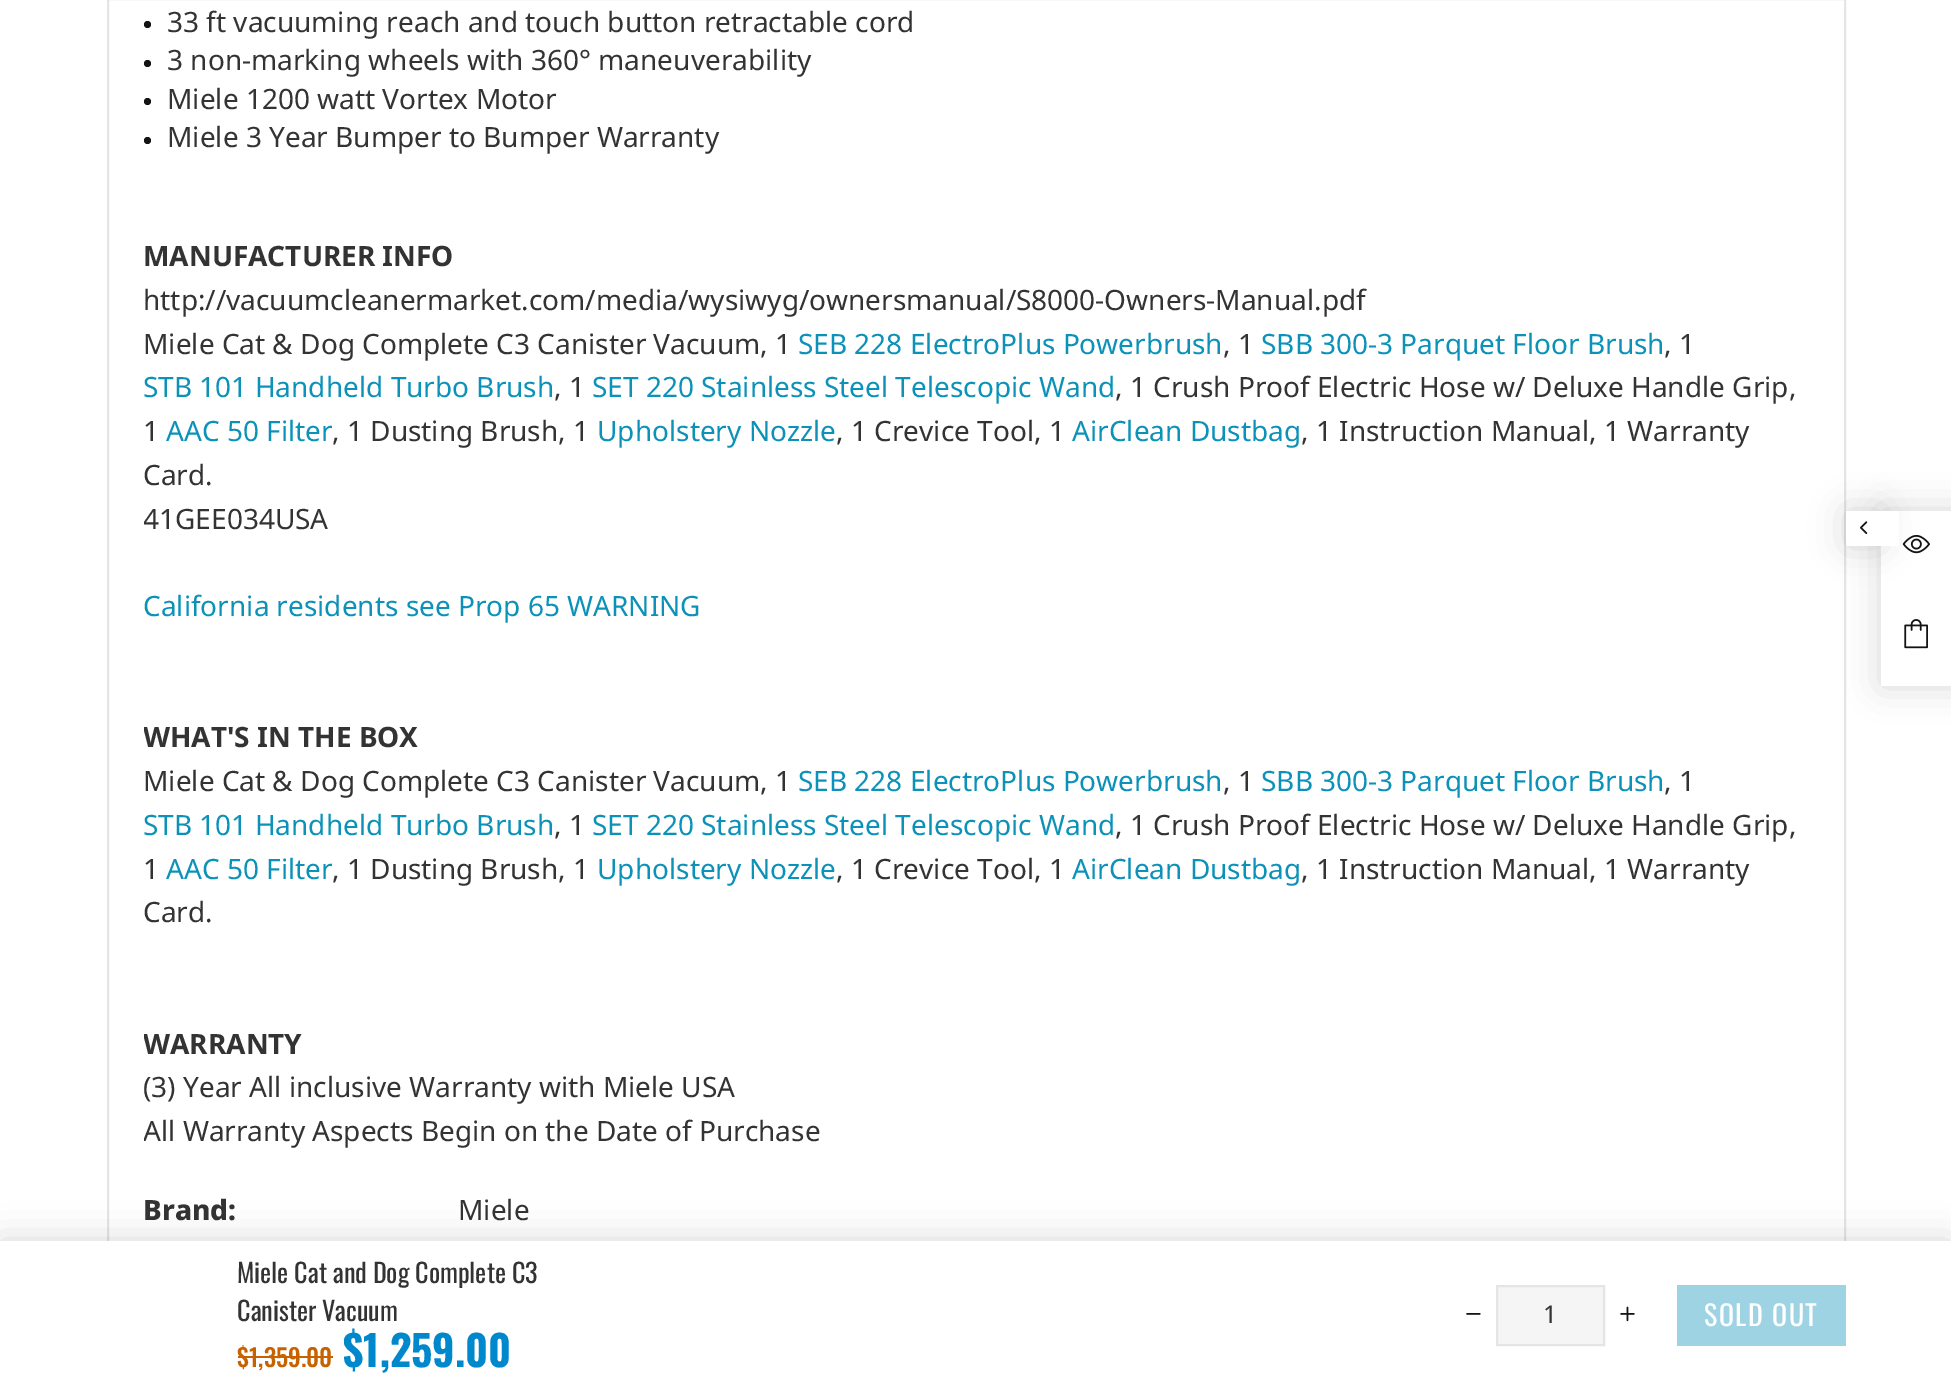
%!PS-Adobe-3.0
%%BoundingBox: 0 0 1951 1387
%%LanguageLevel: 3
%%Pages: 1
%%EndComments
%%BeginProlog
/setink { dup -16 bitshift 255 div exch dup -8 bitshift 255 and 255 div exch 255 and 255 div setrgbcolor } def
/usefont { [ exch dup neg 0 0 3 -1 roll 0 0 ] selectfont } def
/setalpha { dup .setfillconstantalpha .setstrokeconstantalpha } def
/disc { newpath 0 360 arc closepath } def
/rrect { 5 dict begin { /r /h /w /y /x } { exch def } forall
  x r add y moveto x w add y 2 copy h add r arct x w add y h add x 1 index r arct
  x y h add x y r arct x y 2 copy exch w add exch r arct closepath end } def
/softshadow { 12 dict begin { /a /b /q /h /w /y /x } { exch def } forall gsave /was 0 def
  9 -2 -9 { dup b mul 4 div /e exch def 1 sub .425 mul 2.718 exch exp 1 add a .99 .min exch div /now exch def
    1 1 now sub 1 was sub div sub setalpha /was now def
    w h .min e 2 mul add 0 gt { x e sub y e sub w e 2 mul add h e 2 mul add
      q e add b .6 mul add w h .min 2 div e add .min 0 .max rrect fill } if } for grestore end } def
/drawimage { 5 dict begin { /h /w /y /x /name } { exch def } forall
  gsave x y translate w h scale
  w h 8 [w 0 0 h 0 0] name (r) file false 3 colorimage grestore end } def
%%EndProlog
%%BeginSetup
<< /PageSize [1951 1387] /PageUsesTransparency true >> setpagedevice
%%EndSetup
%%Page: 1 1
0 .pushpdf14devicefilter
0 1387 translate 1 -1 scale
4 setmiterlimit
16#FFFFFF setink
0 0 1951 1387 rectfill
16#E5E5E5 setink
2 setlinewidth
108 -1 1737 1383 rectstroke
16#141414 setink
147.5 24.5 3.5 disc fill
/NotoSans-Regular 28 usefont
16#333333 setink
167 32 moveto (33 ft vacuuming reach and touch button retractable cord) show
16#141414 setink
147.5 63.5 3.5 disc fill
16#333333 setink
167 70 moveto (3 non-marking wheels with 360° maneuverability) show
16#141414 setink
147.5 101.5 3.5 disc fill
16#333333 setink
167 109 moveto (Miele 1200 watt Vortex Motor) show
16#141414 setink
147.5 140.5 3.5 disc fill
16#333333 setink
167 147 moveto (Miele 3 Year Bumper to Bumper Warranty) show
/NotoSans-Bold 28 usefont
143 266 moveto (MANUFACTURER INFO) show
/NotoSans-Regular 28 usefont
143 310 moveto (http://vacuumcleanermarket.com/media/wysiwyg/ownersmanual/S8000-Owners-Manual.pdf) show
143 354 moveto (Miele Cat & Dog Complete C3 Canister Vacuum, 1) show
16#0C92B8 setink
798 354 moveto (SEB 228 ElectroPlus Powerbrush) show
16#333333 setink
1223 354 moveto (, 1) show
16#0C92B8 setink
1261 354 moveto (SBB 300-3 Parquet Floor Brush) show
16#333333 setink
1664 354 moveto (, 1) show
16#0C92B8 setink
143 397 moveto (STB 101 Handheld Turbo Brush) show
16#333333 setink
554 397 moveto (, 1) show
16#0C92B8 setink
592 397 moveto (SET 220 Stainless Steel Telescopic Wand) show
16#333333 setink
1115 397 moveto (, 1 Crush Proof Electric Hose w/ Deluxe Handle Grip,) show
143 441 moveto (1) show
16#0C92B8 setink
166 441 moveto (AAC 50 Filter) show
16#333333 setink
332 441 moveto (, 1 Dusting Brush, 1) show
16#0C92B8 setink
597 441 moveto (Upholstery Nozzle) show
16#333333 setink
836 441 moveto (, 1 Crevice Tool, 1) show
16#0C92B8 setink
1072 441 moveto (AirClean Dustbag) show
16#333333 setink
1301 441 moveto (, 1 Instruction Manual, 1 Warranty) show
143 485 moveto (Card.) show
gsave
144 0 1666 1381 rectclip
143 529 moveto (41GEE034USA) show
grestore
16#0C92B8 setink
143 616 moveto (California residents see Prop 65 WARNING) show
gsave
144 0 1666 1381 rectclip
/NotoSans-Bold 28 usefont
16#333333 setink
143 747 moveto (WHAT'S IN THE BOX) show
grestore
16#333333 setink
143 791 moveto (Miele Cat & Dog Complete C3 Canister Vacuum, 1) show
16#0C92B8 setink
798 791 moveto (SEB 228 ElectroPlus Powerbrush) show
16#333333 setink
1223 791 moveto (, 1) show
16#0C92B8 setink
1261 791 moveto (SBB 300-3 Parquet Floor Brush) show
16#333333 setink
1664 791 moveto (, 1) show
16#0C92B8 setink
143 835 moveto (STB 101 Handheld Turbo Brush) show
16#333333 setink
554 835 moveto (, 1) show
16#0C92B8 setink
592 835 moveto (SET 220 Stainless Steel Telescopic Wand) show
16#333333 setink
1115 835 moveto (, 1 Crush Proof Electric Hose w/ Deluxe Handle Grip,) show
143 879 moveto (1) show
16#0C92B8 setink
166 879 moveto (AAC 50 Filter) show
16#333333 setink
332 879 moveto (, 1 Dusting Brush, 1) show
16#0C92B8 setink
597 879 moveto (Upholstery Nozzle) show
16#333333 setink
836 879 moveto (, 1 Crevice Tool, 1) show
16#0C92B8 setink
1072 879 moveto (AirClean Dustbag) show
16#333333 setink
1301 879 moveto (, 1 Instruction Manual, 1 Warranty) show
143 922 moveto (Card.) show
gsave
144 0 1666 1381 rectclip
/NotoSans-Bold 28 usefont
143 1054 moveto (WARRANTY) show
/NotoSans-Regular 28 usefont
143 1097 moveto (\(3\) Year All inclusive Warranty with Miele USA) show
143 1141 moveto (All Warranty Aspects Begin on the Date of Purchase) show
grestore
/NotoSans-ExtraBold 28 usefont
143 1220 moveto (Brand:) show
/NotoSans-Regular 28 usefont
458 1220 moveto (Miele) show
16#000000 setink
1881 511 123 175 0 17.5 0.15 softshadow
16#FFFFFF setink
1881 511 70 175 rectfill
(img2.raw) 1902 534 28 20 drawimage
16#000000 setink
1846 511 35 35 0 17.5 0.15 softshadow
16#FFFFFF setink
1846 511 53 35 rectfill
(img1.raw) 1860 521 8 13 drawimage
(img3.raw) 1904 619 24 30 drawimage
16#000000 setink
0 1241 1951 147 0 17.5 0.15 softshadow
16#FFFFFF setink
0 1241 1951 146 rectfill
/Oswald-Regular 26.25 usefont
16#333333 setink
237 1283 moveto (Miele Cat and Dog Complete C3) show
237 1321 moveto (Canister Vacuum) show
/Oswald-Medium 24.5 usefont
16#C76200 setink
237 1367 moveto ($1,359.00) show
238 1356 95 2 rectfill
/Oswald-Bold 42 usefont
16#0088CC setink
343 1367 moveto ($1,259.00) show
(img4.raw) 1466 1313 15 2 drawimage
16#F5F5F5 setink
1497 1286 moveto 1604 1286 lineto 1604 1345 lineto 1497 1345 lineto closepath gsave fill grestore
16#E5E5E5 setink
stroke
/NotoSans-Regular 24.5 usefont
16#333333 setink
1543 1323 moveto (1) show
(img5.raw) 1620 1306 15 16 drawimage
16#9ED3E3 setink
1677 1285 169 61 rectfill
/Oswald-Regular 28 usefont
16#FFFFFF setink
1704 1326 moveto 1.5 0 (SOLD OUT) ashow
.poppdf14devicefilter showpage
%%EOF
